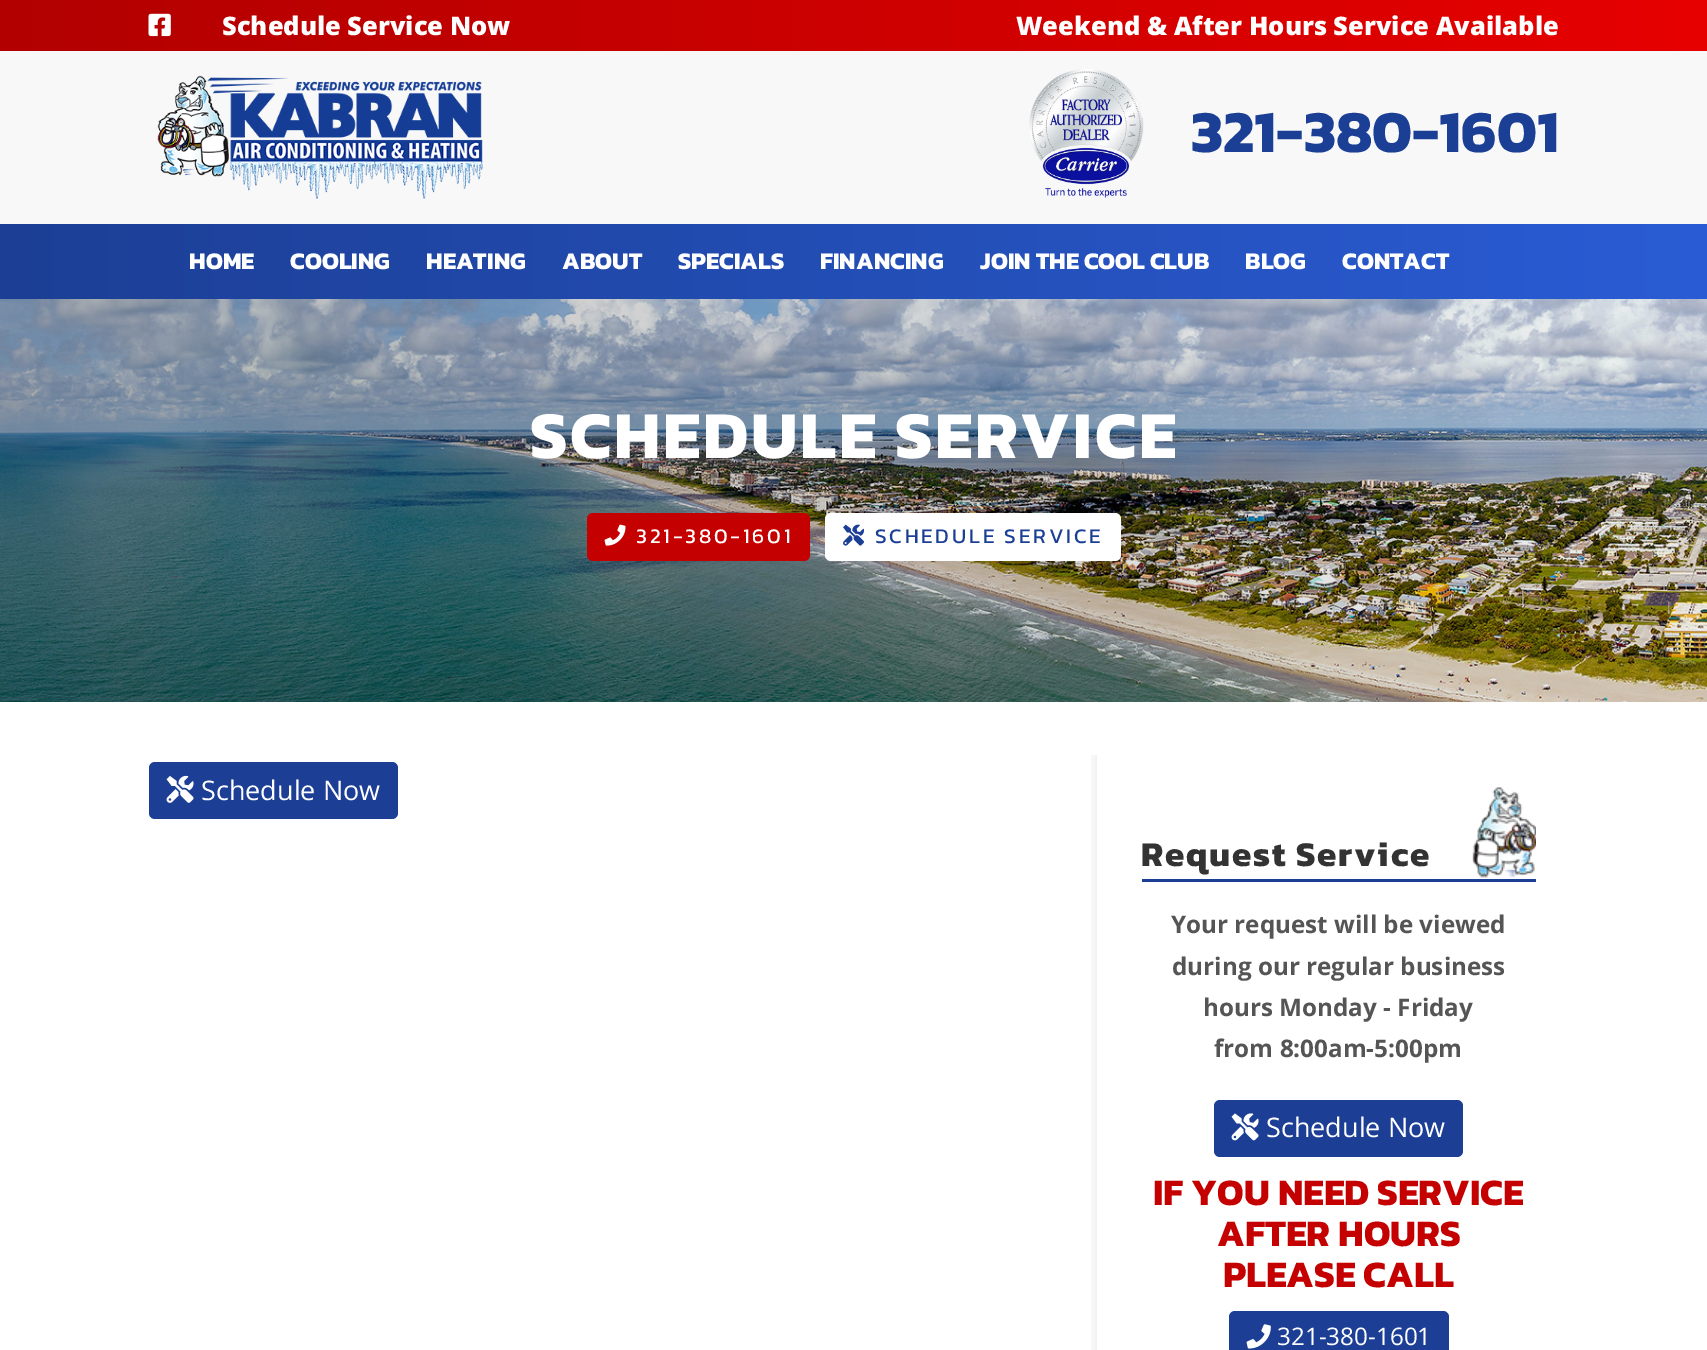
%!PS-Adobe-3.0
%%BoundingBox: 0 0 1707 1350
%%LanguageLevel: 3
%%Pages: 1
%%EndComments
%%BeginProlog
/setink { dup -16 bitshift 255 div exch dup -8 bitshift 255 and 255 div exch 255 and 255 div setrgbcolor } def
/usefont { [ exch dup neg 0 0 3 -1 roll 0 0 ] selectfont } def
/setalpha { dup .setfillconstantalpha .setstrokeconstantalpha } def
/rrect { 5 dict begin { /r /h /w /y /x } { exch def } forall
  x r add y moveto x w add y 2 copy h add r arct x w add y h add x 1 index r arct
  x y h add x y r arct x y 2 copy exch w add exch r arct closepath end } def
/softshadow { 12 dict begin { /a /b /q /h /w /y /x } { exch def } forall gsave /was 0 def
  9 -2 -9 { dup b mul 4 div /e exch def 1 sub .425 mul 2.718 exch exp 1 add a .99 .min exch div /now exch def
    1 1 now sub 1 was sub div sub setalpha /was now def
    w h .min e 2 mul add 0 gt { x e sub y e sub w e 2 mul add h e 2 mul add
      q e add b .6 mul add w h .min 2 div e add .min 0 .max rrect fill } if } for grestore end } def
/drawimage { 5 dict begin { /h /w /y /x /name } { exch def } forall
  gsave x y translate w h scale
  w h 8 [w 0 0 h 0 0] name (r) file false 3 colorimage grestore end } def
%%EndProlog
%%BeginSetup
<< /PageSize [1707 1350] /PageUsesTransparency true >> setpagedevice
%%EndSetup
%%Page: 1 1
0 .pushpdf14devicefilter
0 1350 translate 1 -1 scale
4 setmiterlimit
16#FFFFFF setink
0 0 1707 1350 rectfill
gsave 0 0 moveto 1707 0 lineto 1707 51 lineto 0 51 lineto closepath clip newpath
<< /ShadingType 2 /ColorSpace /DeviceRGB /Coords [0 26 1707 25] /Extend [true true] /Function << /FunctionType 2 /Domain [0 1] /C0 [0.698 0 0] /C1 [0.906 0 0] /N 1 >> >> shfill grestore
(img1.raw) 148 13 23 24 drawimage
/OpenSans-ExtraBold 25.5 usefont
222 35 moveto (Schedule Service Now) show
1016 35 moveto (Weekend & After Hours Service Available) show
16#F8F8F8 setink
0 51 1707 173 rectfill
(img2.raw) 157 75 326 124 drawimage
(img3.raw) 1029 69 115 129 drawimage
/Kanit-Bold 60 usefont
16#1C3F96 setink
1191 152 moveto (321-380-1601) show
gsave 0 224 moveto 1707 224 lineto 1707 299 lineto 0 299 lineto closepath clip newpath
<< /ShadingType 2 /ColorSpace /DeviceRGB /Coords [0 261 1707 261] /Extend [true true] /Function << /FunctionType 2 /Domain [0 1] /C0 [0.11 0.247 0.584] /C1 [0.165 0.361 0.835] /N 1 >> >> shfill grestore
/Kanit-Bold 24 usefont
16#FFFFFF setink
[
    [(HOME) 189 269]
    [(COOLING) 290 269]
    [(HEATING) 426 269]
    [(ABOUT) 562 269]
    [(SPECIALS) 678 269]
    [(FINANCING) 820 269]
    [(JOIN THE COOL CLUB) 980 269]
    [(BLOG) 1245 269]
    [(CONTACT) 1342 269]
] { aload pop moveto show } forall
(img4.raw) 0 299 1707 403 drawimage
/Kanit-Bold 67.5 usefont
530 458 moveto 2.75 0 (SCHEDULE SERVICE) ashow
16#C50000 setink
587 513 223 48 6 rrect fill
(img5.raw) 604 524 22 22 drawimage
/Kanit-Regular 21 usefont
16#FFFFFF setink
636 543 moveto 2.75 0 (321-380-1601) ashow
825 513 296 48 6 rrect fill
(img6.raw) 843 524 21 22 drawimage
16#1C3F96 setink
875 543 moveto 2.75 0 (SCHEDULE SERVICE) ashow
16#1C3F95 setink
149 762 249 57 6 rrect fill
(img7.raw) 166 775 28 28 drawimage
/OpenSans-Regular 27 usefont
16#FFFFFF setink
201 800 moveto (Schedule Now) show
gsave
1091 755 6 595 rectclip
16#000000 setink
1097 755 454 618 0 7.5 0.1 softshadow
grestore
(img8.raw) 1472 787 64 91 drawimage
16#1C3F95 setink
1142 879 394 3 rectfill
/Kanit-Bold 35 usefont
16#333333 setink
1141 866 moveto 1.75 0 (Request Service) ashow
/OpenSans-Bold 24.25 usefont
16#555555 setink
[
    [(Your request will be viewed) 1171 933]
    [(during our regular business) 1172 975]
    [(hours Monday - Friday) 1203 1016]
    [(from 8:00am-5:00pm) 1214 1057]
] { aload pop moveto show } forall
16#1C3F95 setink
1214 1100 249 57 6 rrect fill
(img9.raw) 1231 1113 28 28 drawimage
/OpenSans-Regular 27 usefont
16#FFFFFF setink
1266 1137 moveto (Schedule Now) show
/Kanit-Bold 37.5 usefont
16#C40000 setink
[
    [(IF YOU NEED SERVICE) 1153 1205]
    [(AFTER HOURS) 1217 1246]
    [(PLEASE CALL) 1223 1287]
] { aload pop moveto show } forall
16#1C3F95 setink
1229 1311 220 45 6 rrect fill
(img10.raw) 1246 1324 25 25 drawimage
/OpenSans-Regular 24.25 usefont
16#FFFFFF setink
1277 1345 moveto (321-380-1601) show
.poppdf14devicefilter showpage
%%EOF
